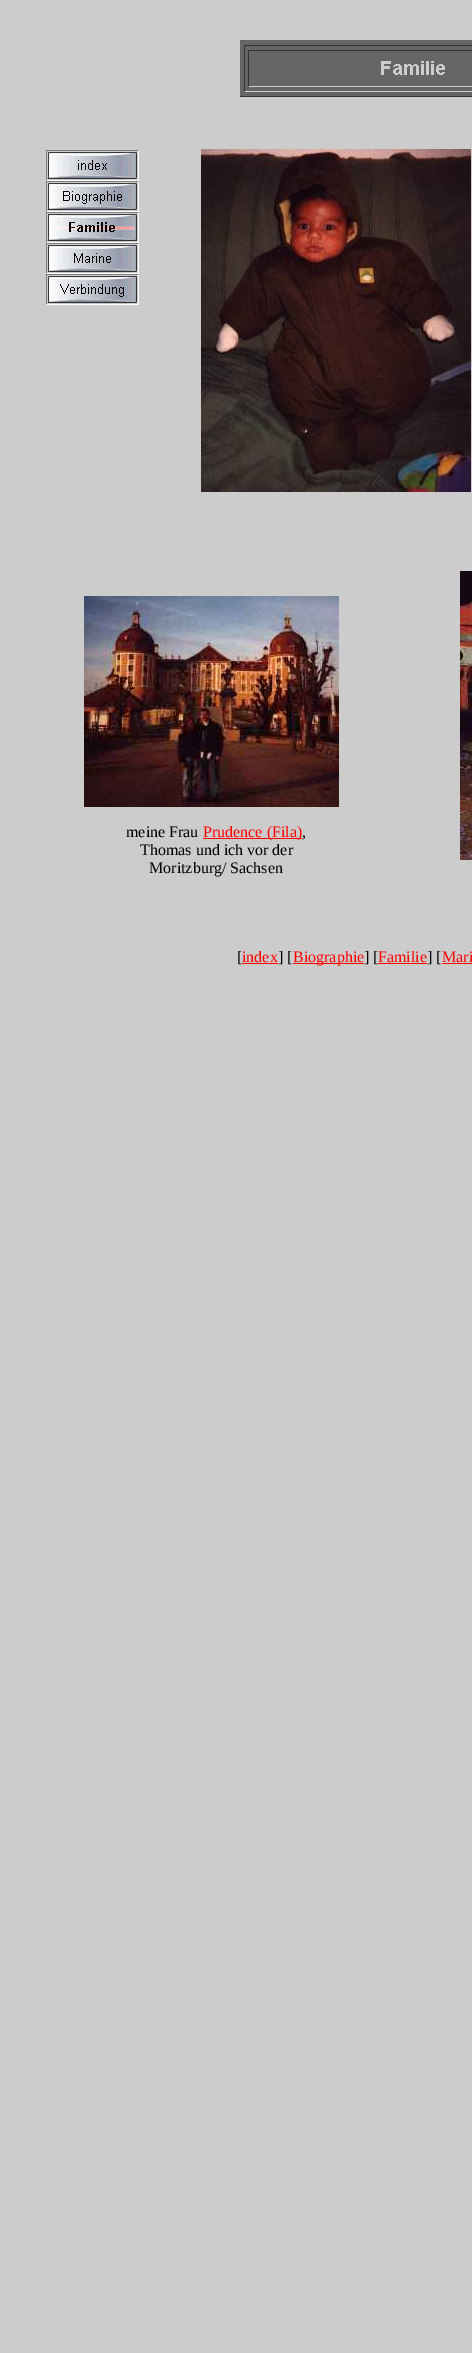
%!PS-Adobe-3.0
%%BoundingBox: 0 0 472 2353
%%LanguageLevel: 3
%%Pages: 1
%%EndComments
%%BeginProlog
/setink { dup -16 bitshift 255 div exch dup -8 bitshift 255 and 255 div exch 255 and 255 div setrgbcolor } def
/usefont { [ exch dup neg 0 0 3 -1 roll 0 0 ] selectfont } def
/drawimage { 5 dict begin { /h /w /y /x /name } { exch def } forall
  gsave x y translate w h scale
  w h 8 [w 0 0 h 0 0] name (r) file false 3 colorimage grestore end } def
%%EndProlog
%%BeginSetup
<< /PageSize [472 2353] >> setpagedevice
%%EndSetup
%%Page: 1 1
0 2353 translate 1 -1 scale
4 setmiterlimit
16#CCCCCC setink
0 0 472 2353 rectfill
(img1.raw) 240 40 232 57 drawimage
(img2.raw) 46 150 93 31 drawimage
(img3.raw) 46 181 93 31 drawimage
(img4.raw) 46 212 93 31 drawimage
(img5.raw) 46 243 93 31 drawimage
(img6.raw) 46 274 93 31 drawimage
(img7.raw) 201 149 270 343 drawimage
(img8.raw) 84 596 255 211 drawimage
/LiberationSerif-Regular 16 usefont
16#000000 setink
126 837 moveto (meine Frau) show
16#FF0000 setink
203 838 99 1 rectfill
203 837 moveto (Prudence \(Fila\)) show
16#000000 setink
[
    [(,) 302 837]
    [(Thomas und ich vor der) 140 855]
    [(Moritzburg/ Sachsen) 149 873]
] { aload pop moveto show } forall
(img9.raw) 460 571 12 289 drawimage
237 962 moveto ([) show
16#FF0000 setink
242 962 moveto (index) show
242 963 36 1 rectfill
16#000000 setink
278 962 moveto (] [) show
16#FF0000 setink
293 963 71 1 rectfill
293 962 moveto (Biographie) show
16#000000 setink
364 962 moveto (] [) show
16#FF0000 setink
378 962 moveto (Familie) show
378 963 49 1 rectfill
16#000000 setink
427 962 moveto (] [) show
16#FF0000 setink
442 962 moveto (Mari) show
442 963 30 1 rectfill
showpage
%%EOF
